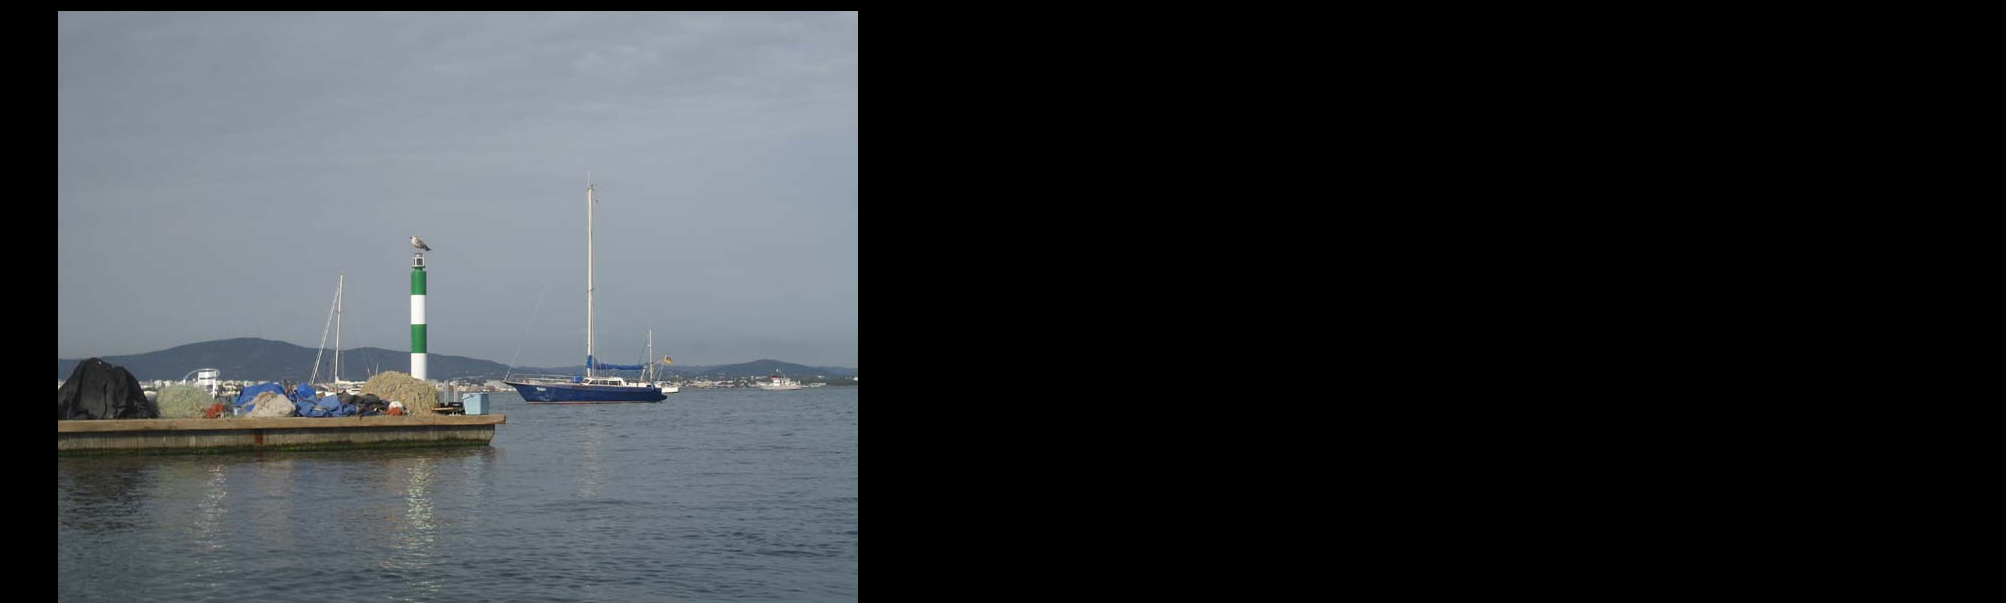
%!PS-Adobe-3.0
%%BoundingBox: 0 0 2006 603
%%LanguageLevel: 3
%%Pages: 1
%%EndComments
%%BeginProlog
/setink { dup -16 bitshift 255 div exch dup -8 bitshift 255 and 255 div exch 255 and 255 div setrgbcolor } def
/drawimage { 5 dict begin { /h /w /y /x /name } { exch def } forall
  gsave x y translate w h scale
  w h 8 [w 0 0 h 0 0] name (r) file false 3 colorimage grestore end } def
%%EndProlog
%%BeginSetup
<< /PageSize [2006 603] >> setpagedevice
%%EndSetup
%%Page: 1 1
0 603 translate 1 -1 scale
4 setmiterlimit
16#000000 setink
0 0 2006 603 rectfill
(img1.raw) 58 11 800 592 drawimage
showpage
%%EOF
